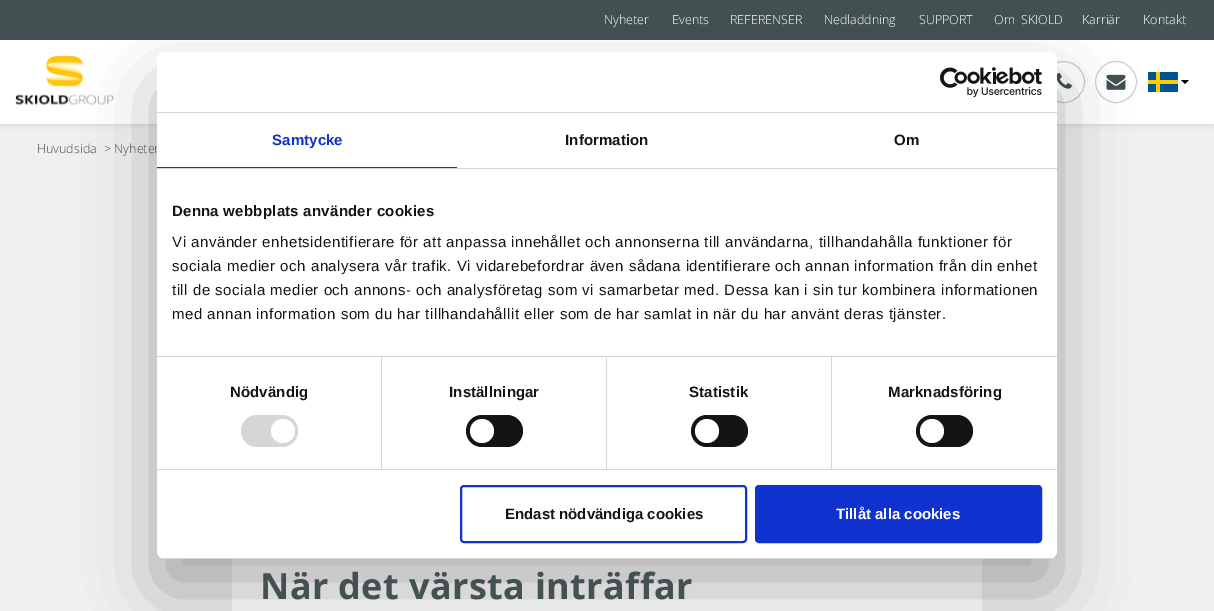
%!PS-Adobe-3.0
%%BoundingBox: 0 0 1214 611
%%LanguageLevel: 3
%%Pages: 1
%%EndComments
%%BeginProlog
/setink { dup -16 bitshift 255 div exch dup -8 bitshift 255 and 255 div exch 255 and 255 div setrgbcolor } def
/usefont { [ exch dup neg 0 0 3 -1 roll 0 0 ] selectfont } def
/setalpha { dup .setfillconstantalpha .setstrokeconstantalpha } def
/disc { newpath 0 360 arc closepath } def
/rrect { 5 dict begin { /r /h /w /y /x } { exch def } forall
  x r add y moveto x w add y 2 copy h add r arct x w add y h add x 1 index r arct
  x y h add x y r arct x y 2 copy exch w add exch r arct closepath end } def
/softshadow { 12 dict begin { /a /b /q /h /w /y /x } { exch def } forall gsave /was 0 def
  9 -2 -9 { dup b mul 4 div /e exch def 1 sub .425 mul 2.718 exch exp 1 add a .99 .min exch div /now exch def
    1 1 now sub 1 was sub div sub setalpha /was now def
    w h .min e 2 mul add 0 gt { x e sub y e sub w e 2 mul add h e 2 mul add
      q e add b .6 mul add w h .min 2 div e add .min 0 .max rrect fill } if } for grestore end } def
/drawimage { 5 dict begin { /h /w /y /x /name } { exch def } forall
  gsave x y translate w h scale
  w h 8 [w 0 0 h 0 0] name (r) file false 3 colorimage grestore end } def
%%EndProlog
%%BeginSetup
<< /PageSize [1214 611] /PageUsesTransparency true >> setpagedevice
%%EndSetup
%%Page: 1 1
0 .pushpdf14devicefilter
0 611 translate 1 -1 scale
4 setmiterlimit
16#F0F0F0 setink
0 0 1214 611 rectfill
16#CCCCCC setink
0 0 1214 124 0 3.5 1 softshadow
16#FFFFFF setink
0 40 1214 84 rectfill
16#435152 setink
0 0 1214 40 rectfill
/OpenSans-Light 12.5 usefont
16#FFFFFF setink
[
    [(Nyheter) 604 24]
    [(Events) 672 24]
    [(REFERENSER) 730 24]
    [(Nedladdning) 824 24]
    [(SUPPORT) 919 24]
] { aload pop moveto show } forall
994 24 moveto 3 0 32 (Om SKIOLD) widthshow
1082 24 moveto (Karriär) show
1143 24 moveto (Kontakt) show
(img1.raw) 15 56 99 49 drawimage
16#CCCCCC setink
1064 82 20.5 disc stroke
(img2.raw) 1057 73 15 16 drawimage
1116 82 20.5 disc stroke
(img3.raw) 1106 74 20 16 drawimage
(img4.raw) 1148 72 30 20 drawimage
16#000000 setink
1181 80 moveto 1189 80 lineto 1185 84 lineto closepath fill
16#FFFFFF setink
232 559 750 52 rectfill
16#000000 setink
157 84 900 507 8 34 0.3 softshadow
16#435152 setink
104 153 moveto (> Nyheter) show
16#FFFFFF setink
157 52 900 507 8 rrect fill
16#D6D6D6 setink
157 112 900 1 rectfill
(img5.raw) 940 67 102 30 drawimage
157 168 900 1 rectfill
16#1032CF setink
157 167 300 1 rectfill
/LiberationSans-Bold 15 usefont
272 145 moveto 0.1 0 (Samtycke) ashow
16#141414 setink
565 145 moveto 0.1 0 (Information) ashow
894 145 moveto 0.1 0 (Om) ashow
16#D6D6D6 setink
157 356 900 1 rectfill
16#141414 setink
172 216 moveto 0.25 0 (Denna webbplats använder cookies) ashow
/LiberationSans-Regular 15 usefont
172 247 moveto 0.5 0 (Vi använder enhetsidentifierare för att anpassa innehållet och annonserna till användarna, tillhandahålla funktioner för) ashow
172 271 moveto 0.5 0 (sociala medier och analysera vår trafik. Vi vidarebefordrar även sådana identifierare och annan information från din enhet) ashow
172 295 moveto 0.5 0 (till de sociala medier och annons- och analysföretag som vi samarbetar med. Dessa kan i sin tur kombinera informationen) ashow
172 319 moveto 0.5 0 (med annan information som du har tillhandahållit eller som de har samlat in när du har använt deras tjänster.) ashow
16#D6D6D6 setink
157 469 900 1 rectfill
381 357 1 112 rectfill
/LiberationSans-Bold 15 usefont
16#141414 setink
230 397 moveto 0.1 0 (Nödvändig) ashow
16#D6D6D6 setink
241 415 57 32 16 rrect fill
16#FFFFFF setink
283 431 12 disc fill
16#D6D6D6 setink
606 357 1 112 rectfill
16#141414 setink
449 397 moveto 0.1 0 (Inställningar) ashow
466 415 57 32 16 rrect fill
16#FFFFFF setink
482 431 12 disc fill
16#D6D6D6 setink
831 357 1 112 rectfill
16#141414 setink
689 397 moveto 0.1 0 (Statistik) ashow
691 415 57 32 16 rrect fill
16#FFFFFF setink
707 431 12 disc fill
16#141414 setink
888 397 moveto 0.1 0 (Marknadsföring) ashow
916 415 57 32 16 rrect fill
16#FFFFFF setink
932 431 12 disc fill
gsave
157 52 900 507 8 rrect clip newpath
16#D6D6D6 setink
157 558 900 1 rectfill
grestore
16#1032CF setink
2 setlinewidth
461 486 285 56 3 rrect stroke
16#141414 setink
505 519 moveto (Endast nödvändiga cookies) show
16#1032CF setink
756 486 285 56 3 rrect gsave fill grestore
stroke
16#FFFFFF setink
836 519 moveto (Tillåt alla cookies) show
/OpenSans-Light 12.5 usefont
16#435152 setink
37 153 moveto (Huvudsida) show
/OpenSans-Bold 36 usefont
260 599 moveto 0.4 0 (När det värsta inträffar) ashow
.poppdf14devicefilter showpage
%%EOF
